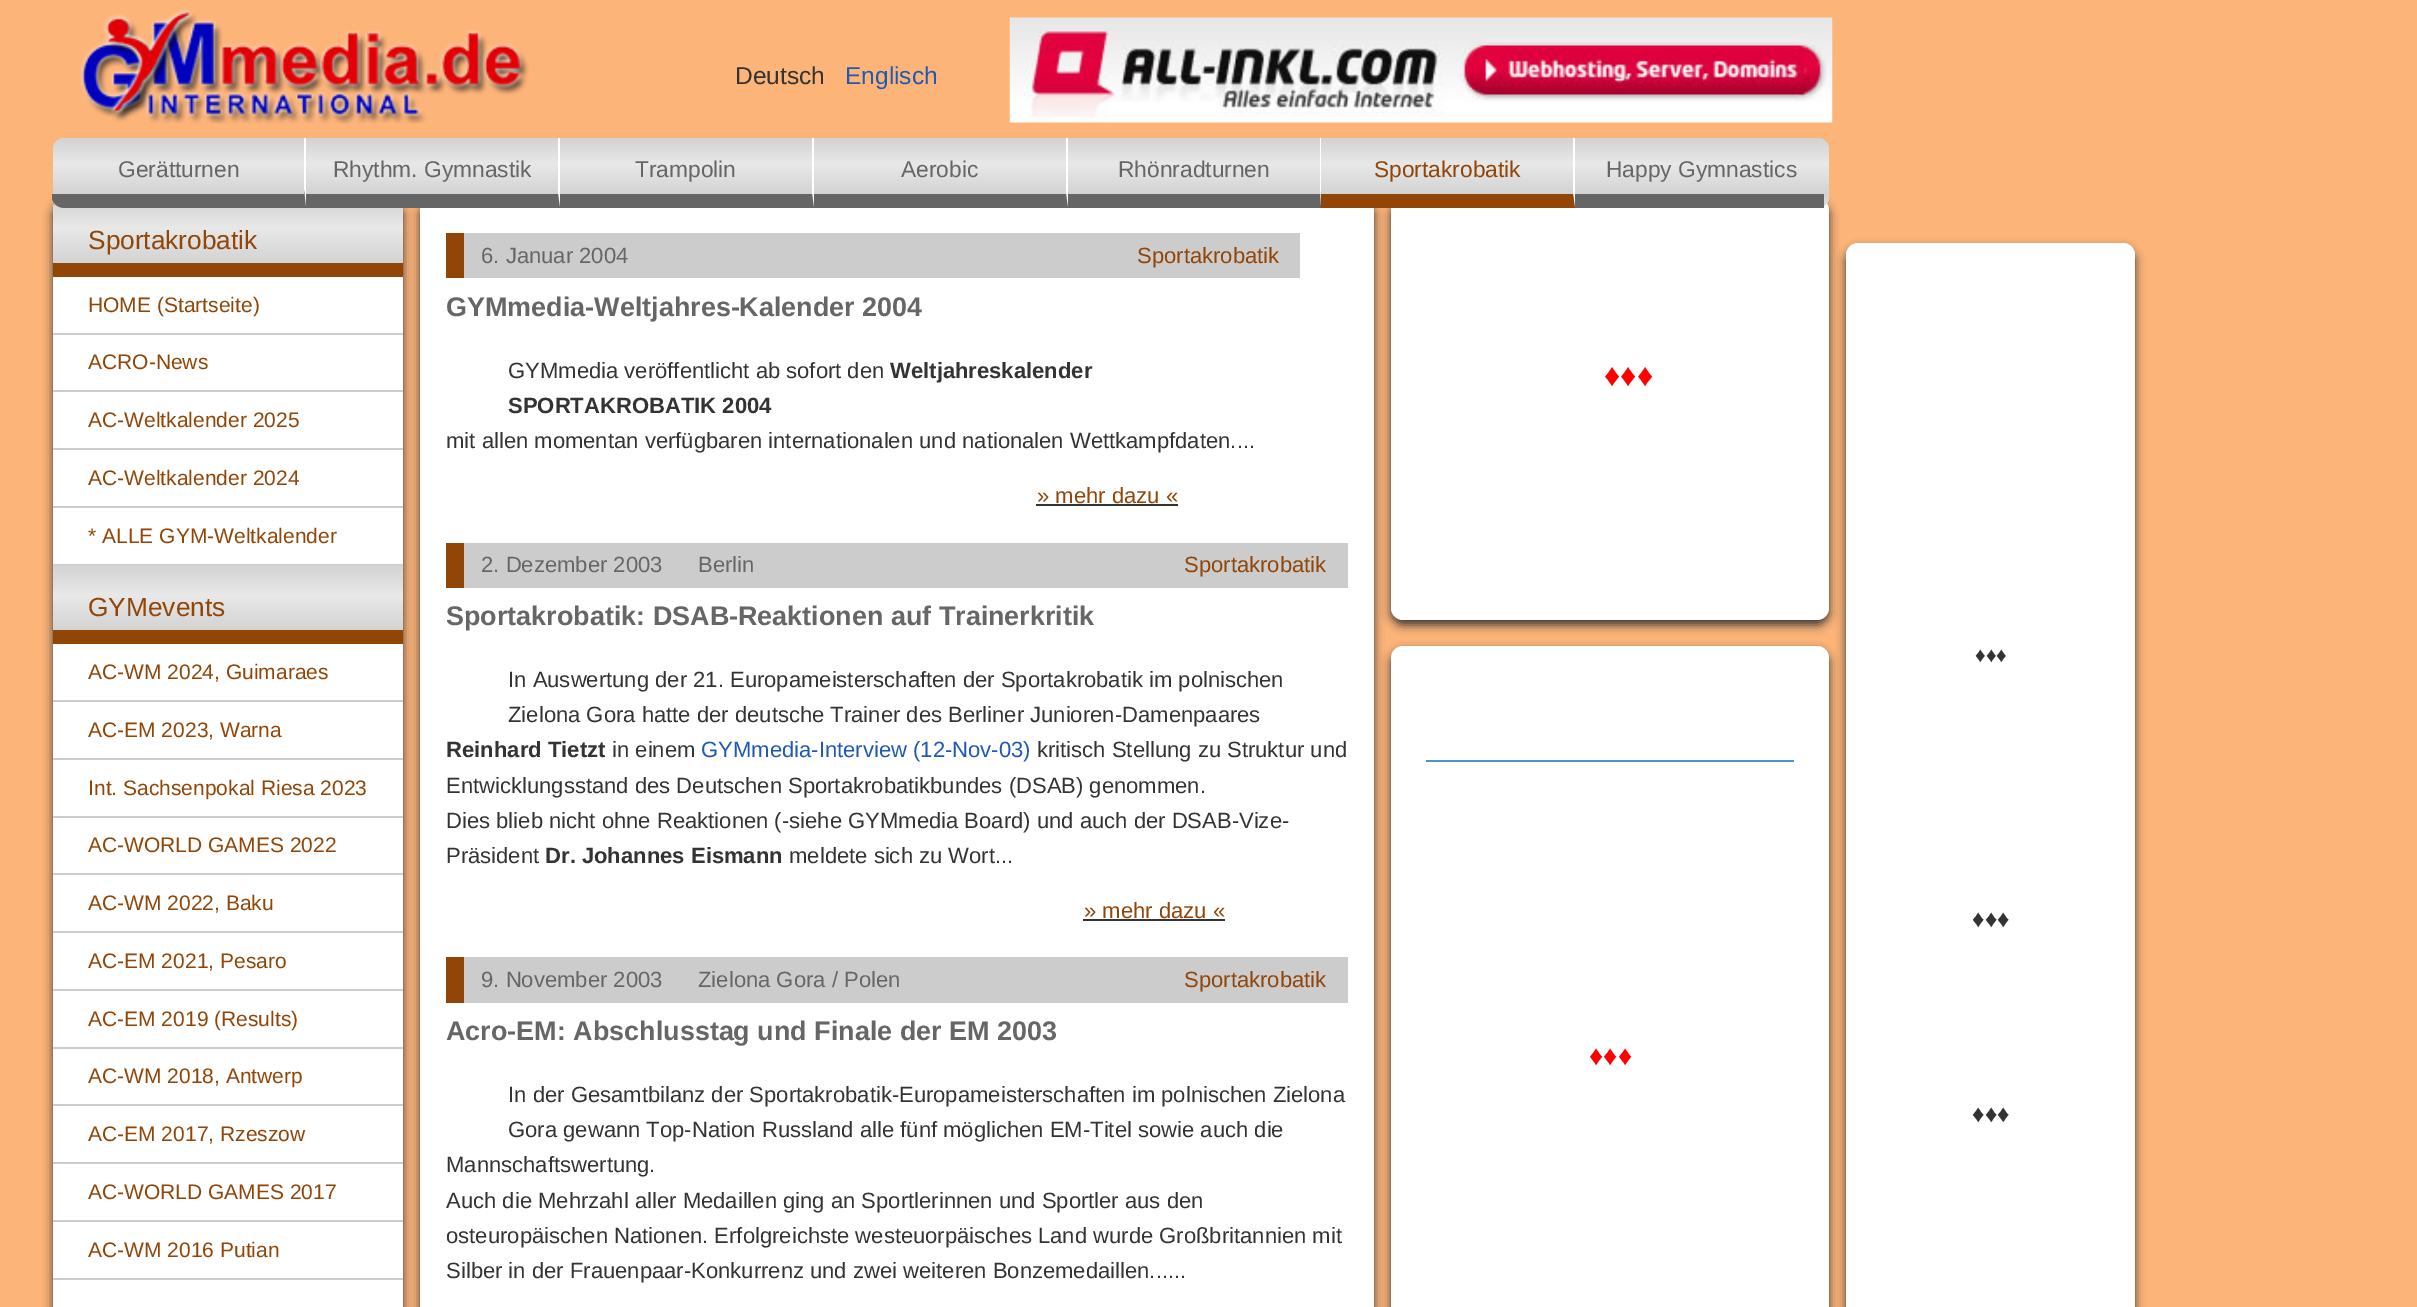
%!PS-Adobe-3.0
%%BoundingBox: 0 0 2417 1307
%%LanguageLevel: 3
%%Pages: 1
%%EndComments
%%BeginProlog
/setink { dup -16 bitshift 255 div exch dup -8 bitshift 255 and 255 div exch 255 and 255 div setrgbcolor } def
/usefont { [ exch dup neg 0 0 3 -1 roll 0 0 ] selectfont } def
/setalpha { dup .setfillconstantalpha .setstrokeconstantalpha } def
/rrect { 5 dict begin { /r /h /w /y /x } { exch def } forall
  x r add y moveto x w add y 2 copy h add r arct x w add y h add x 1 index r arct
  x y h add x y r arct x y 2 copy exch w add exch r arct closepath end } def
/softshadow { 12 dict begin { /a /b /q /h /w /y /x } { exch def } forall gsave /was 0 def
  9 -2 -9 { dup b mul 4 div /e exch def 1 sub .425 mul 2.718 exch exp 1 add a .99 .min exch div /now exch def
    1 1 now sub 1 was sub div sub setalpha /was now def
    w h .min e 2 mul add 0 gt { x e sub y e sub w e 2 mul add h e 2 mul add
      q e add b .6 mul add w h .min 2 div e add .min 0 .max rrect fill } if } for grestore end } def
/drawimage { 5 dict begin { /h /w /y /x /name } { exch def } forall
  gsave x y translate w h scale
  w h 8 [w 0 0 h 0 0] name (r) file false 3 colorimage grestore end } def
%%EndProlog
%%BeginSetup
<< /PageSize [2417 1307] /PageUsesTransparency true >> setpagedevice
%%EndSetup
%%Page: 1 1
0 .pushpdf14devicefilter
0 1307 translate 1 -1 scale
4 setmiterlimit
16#FDB479 setink
0 0 2417 1307 rectfill
(img1.raw) 80 10 449 114 drawimage
/LiberationSans-Regular 24.5 usefont
16#333333 setink
735 84 moveto (Deutsch) show
16#1F59B1 setink
845 84 moveto (Englisch) show
(img2.raw) 1009 17 824 106 drawimage
16#333333 setink
53 203 350 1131 12 5 1 softshadow
gsave 65 138 moveto 306 138 lineto 306 194 lineto 53 194 lineto 53 150 lineto 53 143.5 58.5 138 65 138 curveto closepath clip newpath
<< /ShadingType 2 /ColorSpace /DeviceRGB /Coords [179 138 179 194] /Extend [true true] /Function << /FunctionType 3 /Domain [0 1] /Functions [<< /FunctionType 2 /Domain [0 1] /C0 [0.827 0.827 0.827] /C1 [0.91 0.91 0.91] /N 1 >> << /FunctionType 2 /Domain [0 1] /C0 [0.91 0.91 0.91] /C1 [0.827 0.827 0.827] /N 1 >>] /Bounds [0.47] /Encode [0 1 0 1] >> >> shfill grestore
16#FFFFFF setink
53 198 350 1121 12 rrect fill
gsave 65 198 moveto 391 198 lineto 397.5 198 403 203.5 403 210 curveto 403 263 lineto 53 263 lineto 53 210 lineto 53 203.5 58.5 198 65 198 curveto closepath clip newpath
<< /ShadingType 2 /ColorSpace /DeviceRGB /Coords [228 198 228 263] /Extend [true true] /Function << /FunctionType 3 /Domain [0 1] /Functions [<< /FunctionType 2 /Domain [0 1] /C0 [0.827 0.827 0.827] /C1 [0.91 0.91 0.91] /N 1 >> << /FunctionType 2 /Domain [0 1] /C0 [0.91 0.91 0.91] /C1 [0.827 0.827 0.827] /N 1 >>] /Bounds [0.47] /Encode [0 1 0 1] >> >> shfill grestore
gsave 53 194 moveto 306 194 lineto 306 208 lineto 65 208 lineto 58.5 208 53 202.5 53 196 curveto closepath clip newpath
<< /ShadingType 2 /ColorSpace /DeviceRGB /Coords [179 194 179 250] /Extend [true true] /Function << /FunctionType 3 /Domain [0 1] /Functions [<< /FunctionType 2 /Domain [0 1] /C0 [0.827 0.827 0.827] /C1 [0.91 0.91 0.91] /N 1 >> << /FunctionType 2 /Domain [0 1] /C0 [0.91 0.91 0.91] /C1 [0.827 0.827 0.827] /N 1 >>] /Bounds [0.47] /Encode [0 1 0 1] >> >> shfill grestore
304 190 moveto 304 138 lineto 306 138 lineto 306 206 lineto closepath fill
16#666666 setink
52 194 moveto 304 194 lineto 304 190 lineto 306 208 lineto 65 208 lineto 59 208 54 205 52 199 curveto closepath fill
/LiberationSans-Regular 22.75 usefont
118 177 moveto (Gerätturnen) show
16#333333 setink
420 203 954 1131 12 5 1 softshadow
gsave 306 138 moveto 558 138 lineto 558 194 lineto 306 194 lineto closepath clip newpath
<< /ShadingType 2 /ColorSpace /DeviceRGB /Coords [432 138 432 194] /Extend [true true] /Function << /FunctionType 3 /Domain [0 1] /Functions [<< /FunctionType 2 /Domain [0 1] /C0 [0.827 0.827 0.827] /C1 [0.91 0.91 0.91] /N 1 >> << /FunctionType 2 /Domain [0 1] /C0 [0.91 0.91 0.91] /C1 [0.827 0.827 0.827] /N 1 >>] /Bounds [0.47] /Encode [0 1 0 1] >> >> shfill grestore
16#FFFFFF setink
420 198 954 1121 12 rrect fill
560 138 moveto 560 208 lineto 558 194 lineto 558 138 lineto closepath fill
16#666666 setink
560 208 moveto 306 208 lineto 306 194 lineto 558 194 lineto closepath fill
333 177 moveto (Rhythm. Gymnastik) show
gsave 560 138 moveto 812 138 lineto 812 194 lineto 560 194 lineto closepath clip newpath
<< /ShadingType 2 /ColorSpace /DeviceRGB /Coords [686 138 686 194] /Extend [true true] /Function << /FunctionType 3 /Domain [0 1] /Functions [<< /FunctionType 2 /Domain [0 1] /C0 [0.827 0.827 0.827] /C1 [0.91 0.91 0.91] /N 1 >> << /FunctionType 2 /Domain [0 1] /C0 [0.91 0.91 0.91] /C1 [0.827 0.827 0.827] /N 1 >>] /Bounds [0.47] /Encode [0 1 0 1] >> >> shfill grestore
16#FFFFFF setink
814 138 moveto 814 208 lineto 812 194 lineto 812 138 lineto closepath fill
16#666666 setink
814 208 moveto 560 208 lineto 560 194 lineto 812 194 lineto closepath fill
635 177 moveto (Trampolin) show
gsave 814 138 moveto 1066 138 lineto 1066 194 lineto 814 194 lineto closepath clip newpath
<< /ShadingType 2 /ColorSpace /DeviceRGB /Coords [940 138 940 194] /Extend [true true] /Function << /FunctionType 3 /Domain [0 1] /Functions [<< /FunctionType 2 /Domain [0 1] /C0 [0.827 0.827 0.827] /C1 [0.91 0.91 0.91] /N 1 >> << /FunctionType 2 /Domain [0 1] /C0 [0.91 0.91 0.91] /C1 [0.827 0.827 0.827] /N 1 >>] /Bounds [0.47] /Encode [0 1 0 1] >> >> shfill grestore
16#FFFFFF setink
1068 138 moveto 1068 208 lineto 1066 194 lineto 1066 138 lineto closepath fill
16#666666 setink
1068 208 moveto 814 208 lineto 814 194 lineto 1066 194 lineto closepath fill
901 177 moveto (Aerobic) show
gsave 1068 138 moveto 1320 138 lineto 1320 194 lineto 1068 194 lineto closepath clip newpath
<< /ShadingType 2 /ColorSpace /DeviceRGB /Coords [1194 138 1194 194] /Extend [true true] /Function << /FunctionType 3 /Domain [0 1] /Functions [<< /FunctionType 2 /Domain [0 1] /C0 [0.827 0.827 0.827] /C1 [0.91 0.91 0.91] /N 1 >> << /FunctionType 2 /Domain [0 1] /C0 [0.91 0.91 0.91] /C1 [0.827 0.827 0.827] /N 1 >>] /Bounds [0.47] /Encode [0 1 0 1] >> >> shfill grestore
16#FFFFFF setink
1321 138 moveto 1321 208 lineto 1320 194 lineto 1320 138 lineto closepath fill
16#666666 setink
1321 208 moveto 1068 208 lineto 1068 194 lineto 1320 194 lineto closepath fill
1118 177 moveto (Rhönradturnen) show
16#333333 setink
1391 203 438 422 12 5 1 softshadow
gsave 1321 138 moveto 1573 138 lineto 1573 194 lineto 1321 194 lineto closepath clip newpath
<< /ShadingType 2 /ColorSpace /DeviceRGB /Coords [1447 138 1447 194] /Extend [true true] /Function << /FunctionType 3 /Domain [0 1] /Functions [<< /FunctionType 2 /Domain [0 1] /C0 [0.827 0.827 0.827] /C1 [0.91 0.91 0.91] /N 1 >> << /FunctionType 2 /Domain [0 1] /C0 [0.91 0.91 0.91] /C1 [0.827 0.827 0.827] /N 1 >>] /Bounds [0.47] /Encode [0 1 0 1] >> >> shfill grestore
16#FFFFFF setink
1391 198 438 422 12 rrect fill
1575 138 moveto 1575 208 lineto 1573 194 lineto 1573 138 lineto closepath fill
16#914507 setink
1575 208 moveto 1321 208 lineto 1321 194 lineto 1573 194 lineto closepath fill
1374 177 moveto (Sportakrobatik) show
gsave 1575 138 moveto 1817 138 lineto 1823.5 138 1829 143.5 1829 150 curveto 1829 194 lineto 1575 194 lineto closepath clip newpath
<< /ShadingType 2 /ColorSpace /DeviceRGB /Coords [1702 138 1702 194] /Extend [true true] /Function << /FunctionType 3 /Domain [0 1] /Functions [<< /FunctionType 2 /Domain [0 1] /C0 [0.827 0.827 0.827] /C1 [0.91 0.91 0.91] /N 1 >> << /FunctionType 2 /Domain [0 1] /C0 [0.91 0.91 0.91] /C1 [0.827 0.827 0.827] /N 1 >>] /Bounds [0.47] /Encode [0 1 0 1] >> >> shfill grestore
gsave 1575 194 moveto 1829 194 lineto 1829 196 lineto 1829 202.5 1823.5 208 1817 208 curveto 1575 208 lineto closepath clip newpath
<< /ShadingType 2 /ColorSpace /DeviceRGB /Coords [1702 194 1702 250] /Extend [true true] /Function << /FunctionType 3 /Domain [0 1] /Functions [<< /FunctionType 2 /Domain [0 1] /C0 [0.827 0.827 0.827] /C1 [0.91 0.91 0.91] /N 1 >> << /FunctionType 2 /Domain [0 1] /C0 [0.91 0.91 0.91] /C1 [0.827 0.827 0.827] /N 1 >>] /Bounds [0.47] /Encode [0 1 0 1] >> >> shfill grestore
16#666666 setink
1575 194 249 14 rectfill
1606 177 moveto (Happy Gymnastics) show
16#914507 setink
53 263 350 14 rectfill
/LiberationSans-Regular 26.25 usefont
88 249 moveto (Sportakrobatik) show
16#CCCCCC setink
53 333 350 2 rectfill
/LiberationSans-Regular 21 usefont
16#914507 setink
88 312 moveto (HOME \(Startseite\)) show
16#CCCCCC setink
53 390 350 2 rectfill
16#914507 setink
88 369 moveto (ACRO-News) show
16#CCCCCC setink
53 448 350 2 rectfill
16#914507 setink
88 427 moveto (AC-Weltkalender 2025) show
16#CCCCCC setink
53 506 350 2 rectfill
16#914507 setink
88 485 moveto (AC-Weltkalender 2024) show
16#CCCCCC setink
53 564 350 1 rectfill
16#914507 setink
88 543 moveto (* ALLE GYM-Weltkalender) show
gsave 53 565 moveto 403 565 lineto 403 630 lineto 53 630 lineto closepath clip newpath
<< /ShadingType 2 /ColorSpace /DeviceRGB /Coords [228 565 228 630] /Extend [true true] /Function << /FunctionType 3 /Domain [0 1] /Functions [<< /FunctionType 2 /Domain [0 1] /C0 [0.827 0.827 0.827] /C1 [0.91 0.91 0.91] /N 1 >> << /FunctionType 2 /Domain [0 1] /C0 [0.91 0.91 0.91] /C1 [0.827 0.827 0.827] /N 1 >>] /Bounds [0.47] /Encode [0 1 0 1] >> >> shfill grestore
53 630 350 14 rectfill
/LiberationSans-Regular 26.25 usefont
88 616 moveto (GYMevents) show
16#CCCCCC setink
53 700 350 2 rectfill
/LiberationSans-Regular 21 usefont
16#914507 setink
88 679 moveto (AC-WM 2024, Guimaraes) show
16#CCCCCC setink
53 758 350 2 rectfill
16#914507 setink
88 737 moveto (AC-EM 2023, Warna) show
16#CCCCCC setink
53 816 350 2 rectfill
16#914507 setink
88 795 moveto (Int. Sachsenpokal Riesa 2023) show
16#CCCCCC setink
53 873 350 2 rectfill
16#914507 setink
88 852 moveto (AC-WORLD GAMES 2022) show
16#CCCCCC setink
53 931 350 2 rectfill
16#914507 setink
88 910 moveto (AC-WM 2022, Baku) show
16#CCCCCC setink
53 989 350 2 rectfill
16#914507 setink
88 968 moveto (AC-EM 2021, Pesaro) show
16#CCCCCC setink
53 1047 350 2 rectfill
16#914507 setink
88 1026 moveto (AC-EM 2019 \(Results\)) show
16#CCCCCC setink
53 1104 350 2 rectfill
16#914507 setink
88 1083 moveto (AC-WM 2018, Antwerp) show
16#CCCCCC setink
53 1162 350 2 rectfill
16#914507 setink
88 1141 moveto (AC-EM 2017, Rzeszow) show
16#CCCCCC setink
53 1220 350 2 rectfill
16#914507 setink
88 1199 moveto (AC-WORLD GAMES 2017) show
16#CCCCCC setink
53 1278 350 2 rectfill
16#914507 setink
88 1257 moveto (AC-WM 2016 Putian) show
446 233 18 45 rectfill
16#CCCCCC setink
464 233 836 45 rectfill
/LiberationSans-Regular 22.05 usefont
16#666666 setink
481 263 moveto (6. Januar 2004) show
16#914507 setink
1137 263 moveto (Sportakrobatik) show
/LiberationSans-Bold 26.95 usefont
16#666666 setink
446 316 moveto (GYMmedia-Weltjahres-Kalender 2004) show
/LiberationSans-Regular 22.05 usefont
16#333333 setink
508 378 moveto (GYMmedia veröffentlicht ab sofort den) show
/LiberationSans-Bold 22.05 usefont
890 378 moveto (Weltjahreskalender) show
508 413 moveto (SPORTAKROBATIK 2004) show
/LiberationSans-Regular 22.05 usefont
446 448 moveto (mit allen momentan verfügbaren internationalen und nationalen Wettkampfdaten....) show
16#914507 setink
1037 503 moveto (» mehr dazu «) show
[
    [1036 504 142 2 16#333333]
    [446 543 18 45 16#914507]
    [464 543 884 45 16#CCCCCC]
] { aload pop setink rectfill } forall
16#666666 setink
481 572 moveto (2. Dezember 2003) show
698 572 moveto (Berlin) show
16#914507 setink
1184 572 moveto (Sportakrobatik) show
/LiberationSans-Bold 26.95 usefont
16#666666 setink
446 625 moveto (Sportakrobatik: DSAB-Reaktionen auf Trainerkritik) show
/LiberationSans-Regular 22.05 usefont
16#333333 setink
508 687 moveto (In Auswertung der 21. Europameisterschaften der Sportakrobatik im polnischen) show
508 722 moveto (Zielona Gora hatte der deutsche Trainer des Berliner Junioren-Damenpaares) show
/LiberationSans-Bold 22.05 usefont
446 757 moveto (Reinhard Tietzt) show
/LiberationSans-Regular 22.05 usefont
612 757 moveto (in einem) show
16#1F59B1 setink
701 757 moveto (GYMmedia-Interview \(12-Nov-03\)) show
16#333333 setink
[
    [(kritisch Stellung zu Struktur und) 1037 757]
    [(Entwicklungsstand des Deutschen Sportakrobatikbundes \(DSAB\) genommen.) 446 793]
    [(Dies blieb nicht ohne Reaktionen \(-siehe GYMmedia Board\) und auch der DSAB-Vize-) 446 828]
    [(Präsident) 446 863]
] { aload pop moveto show } forall
/LiberationSans-Bold 22.05 usefont
545 863 moveto (Dr. Johannes Eismann) show
/LiberationSans-Regular 22.05 usefont
789 863 moveto (meldete sich zu Wort...) show
16#914507 setink
1084 918 moveto (» mehr dazu «) show
[
    [1083 919 142 2 16#333333]
    [446 957 18 46 16#914507]
    [464 957 884 46 16#CCCCCC]
] { aload pop setink rectfill } forall
16#666666 setink
481 987 moveto (9. November 2003) show
698 987 moveto (Zielona Gora / Polen) show
16#914507 setink
1184 987 moveto (Sportakrobatik) show
/LiberationSans-Bold 26.95 usefont
16#666666 setink
446 1040 moveto (Acro-EM: Abschlusstag und Finale der EM 2003) show
/LiberationSans-Regular 22.05 usefont
16#333333 setink
[
    [(In der Gesamtbilanz der Sportakrobatik-Europameisterschaften im polnischen Zielona) 508 1102]
    [(Gora gewann Top-Nation Russland alle fünf möglichen EM-Titel sowie auch die) 508 1137]
    [(Mannschaftswertung.) 446 1172]
    [(Auch die Mehrzahl aller Medaillen ging an Sportlerinnen und Sportler aus den) 446 1208]
    [(osteuropäischen Nationen. Erfolgreichste westeuorpäisches Land wurde Großbritannien mit) 446 1243]
    [(Silber in der Frauenpaar-Konkurrenz und zwei weiteren Bonzemedaillen......) 446 1278]
] { aload pop moveto show } forall
/LiberationSans-Regular 32 usefont
16#FF0000 setink
1604 386 moveto (♦♦♦) show
16#333333 setink
1391 651 438 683 12 5 1 softshadow
16#FFFFFF setink
1391 646 438 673 12 rrect fill
16#5294C1 setink
1426 760 368 2 rectfill
/LiberationSans-Regular 28 usefont
16#FF0000 setink
1589 1065 moveto (♦♦♦) show
16#333333 setink
1846 249 289 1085 12 5 1 softshadow
16#FFFFFF setink
1846 243 289 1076 12 rrect fill
/LiberationSans-Regular 21 usefont
16#333333 setink
1975 662 moveto (♦♦♦) show
/LiberationSans-Regular 24.5 usefont
1972 927 moveto (♦♦♦) show
1972 1122 moveto (♦♦♦) show
.poppdf14devicefilter showpage
%%EOF
